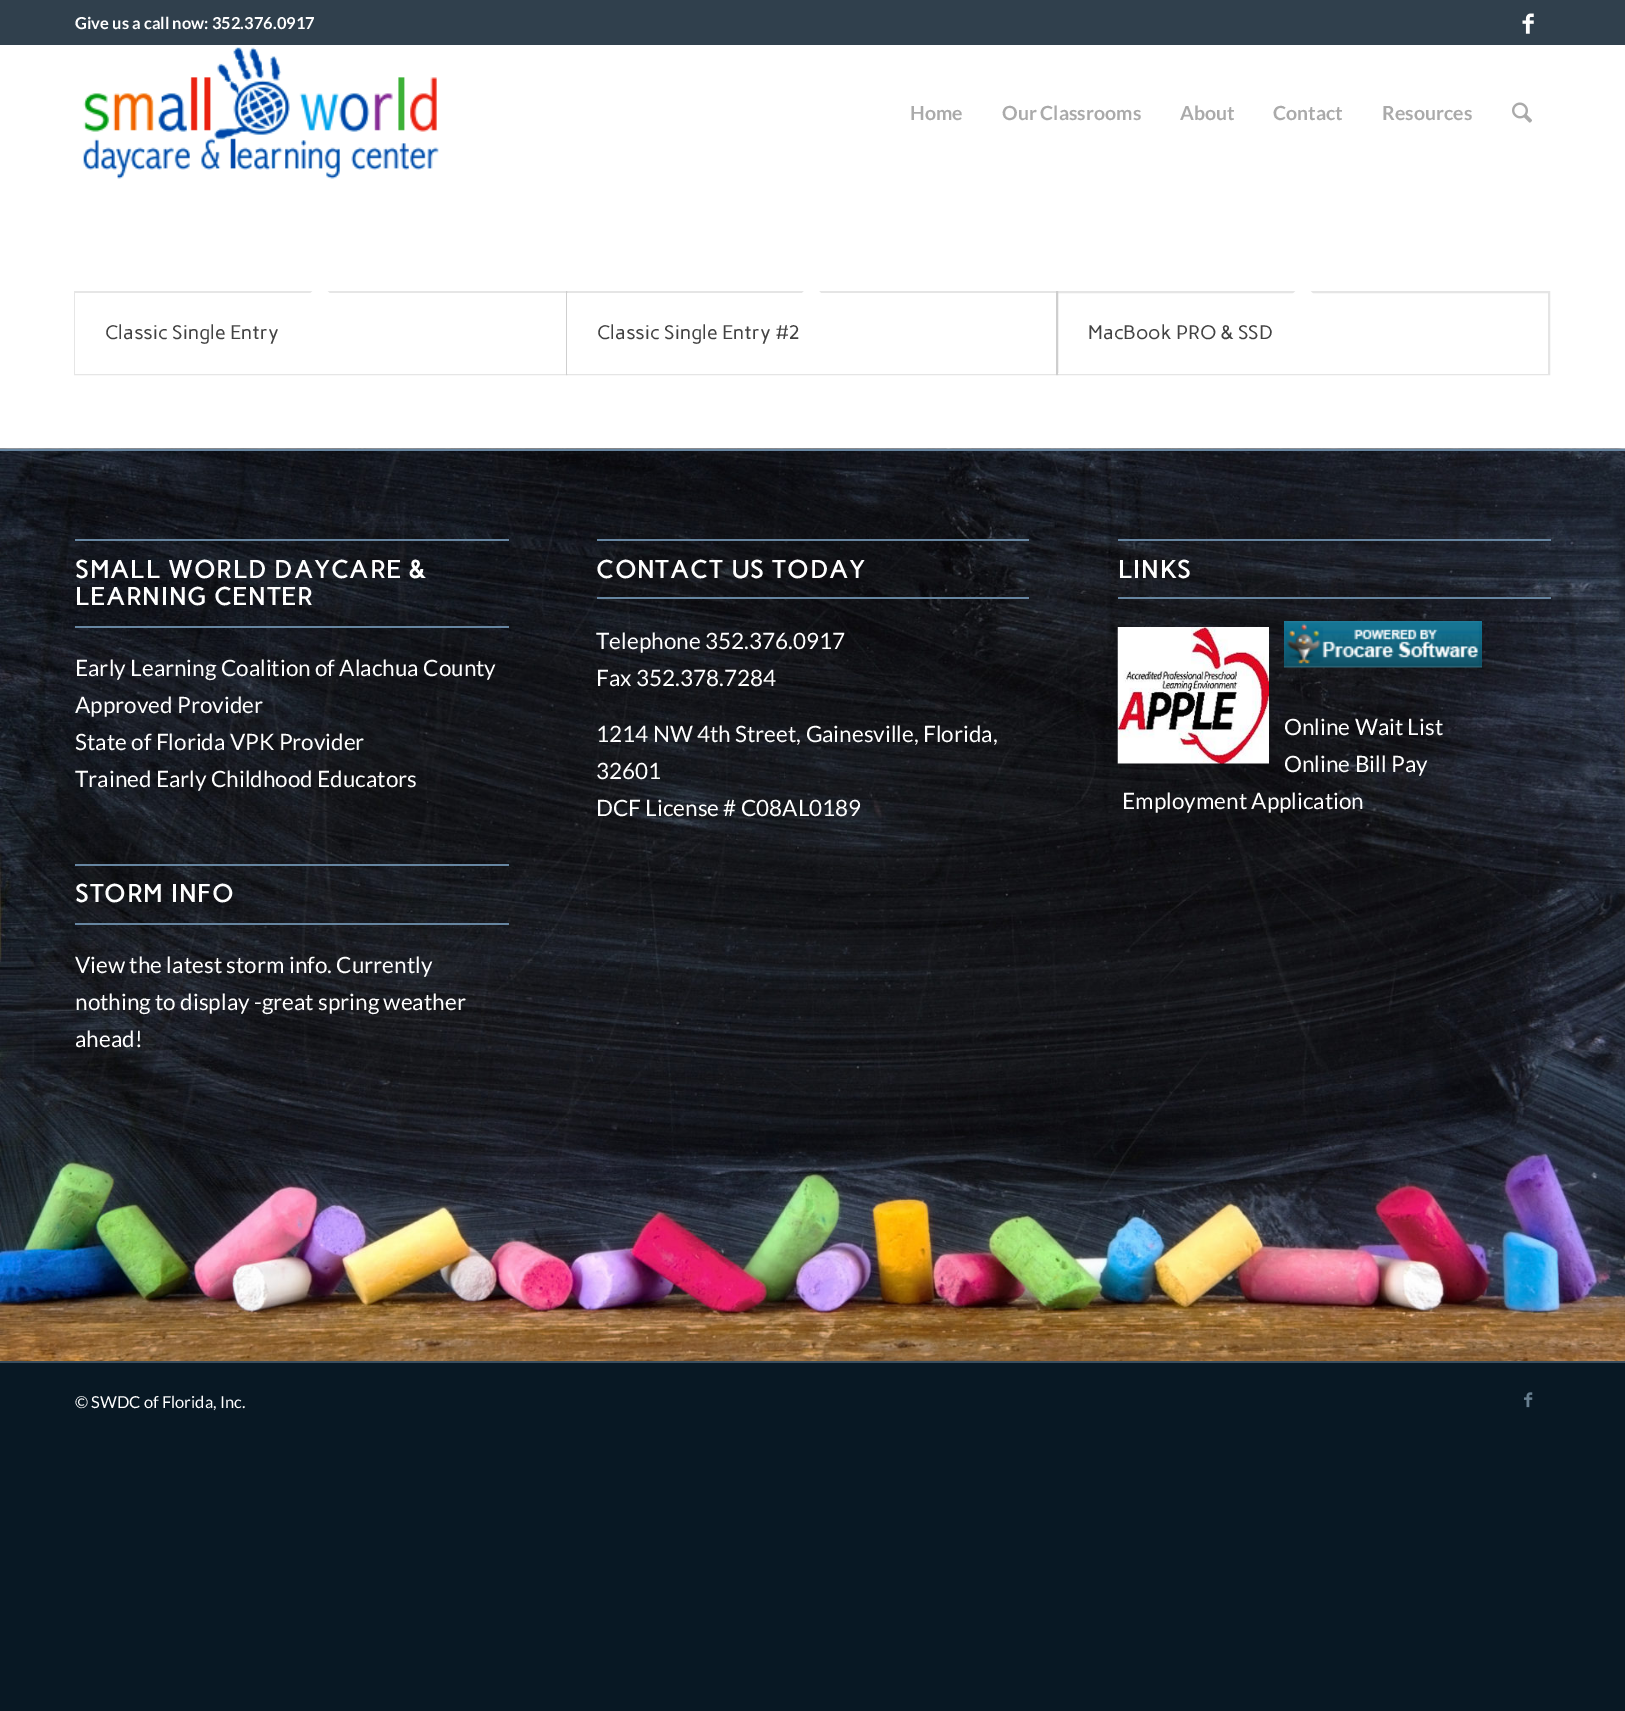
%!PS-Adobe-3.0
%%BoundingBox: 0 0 1625 1711
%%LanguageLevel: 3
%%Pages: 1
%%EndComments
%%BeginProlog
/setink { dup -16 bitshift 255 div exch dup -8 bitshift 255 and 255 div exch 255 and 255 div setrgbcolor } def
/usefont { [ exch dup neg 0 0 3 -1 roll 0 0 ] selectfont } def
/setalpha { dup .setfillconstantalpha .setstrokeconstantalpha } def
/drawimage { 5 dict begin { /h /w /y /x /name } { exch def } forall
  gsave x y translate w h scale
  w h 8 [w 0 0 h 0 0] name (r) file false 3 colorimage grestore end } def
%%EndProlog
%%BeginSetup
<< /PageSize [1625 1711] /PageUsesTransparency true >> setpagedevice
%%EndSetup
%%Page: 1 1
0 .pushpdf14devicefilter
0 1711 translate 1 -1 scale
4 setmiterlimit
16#081824 setink
0 0 1625 1711 rectfill
16#30404D setink
0 0 1625 45 rectfill
/Lato-Bold 16.5 usefont
16#FFFFFF setink
75 29 moveto (Give us a call now: 352.376.0917) show
(img1.raw) 1522 13 12 21 drawimage
0 45 1625 404 rectfill
(img2.raw) 83 47 356 132 drawimage
/Lato-Bold 19.5 usefont
16#AAAAAA setink
[
    [(Home) 910 120]
    [(Our Classrooms) 1002 120]
    [(About) 1180 120]
    [(Contact) 1273 120]
    [(Resources) 1382 120]
] { aload pop moveto show } forall
(img3.raw) 1512 102 20 21 drawimage
16#E6E6E6 setink
2 setlinewidth
75 292 491 82 rectstroke
16#FFFFFF setink
75 293 491 81 rectfill
320 283.5 moveto 330.5 294 lineto 320 304.5 lineto 309.5 294 lineto closepath fill
/Carme-Regular 19.5 usefont
16#424242 setink
105 339 moveto (Classic Single Entry) show
0.1 setalpha
16#000000 setink
567 292 490 82 rectstroke
1 setalpha
16#FFFFFF setink
567 293 489 81 rectfill
811.5 283.5 moveto 822 294 lineto 811.5 304.5 lineto 801 294 lineto closepath fill
16#424242 setink
597 339 moveto (Classic Single Entry #2) show
0.1 setalpha
16#000000 setink
1057 292 492 82 rectstroke
1 setalpha
16#FFFFFF setink
1058 373 490 1 rectfill
1303 283.5 moveto 1313.5 294 lineto 1303 304.5 lineto 1292.5 294 lineto closepath fill
16#424242 setink
1088 339 moveto (MacBook PRO & SSD) show
(img4.raw) 0 448 1625 913 drawimage
[
    [0 449 1625 2 16#6786A1]
    [75 539 434 2 16#6786A1]
    [75 626 434 2 16#6786A1]
] { aload pop setink rectfill } forall
/Carme-Bold 24.75 usefont
16#FFFFFF setink
75 578 moveto 1.5 0 (SMALL WORLD DAYCARE &) ashow
75 605 moveto 1.5 0 (LEARNING CENTER) ashow
/Lato-Regular 22.5 usefont
[
    [(Early Learning Coalition of Alachua County) 75 676]
    [(Approved Provider) 75 713]
    [(State of Florida VPK Provider) 75 750]
    [(Trained Early Childhood Educators) 75 787]
] { aload pop moveto show } forall
16#6786A1 setink
75 864 434 2 rectfill
75 923 434 2 rectfill
/Carme-Bold 24.75 usefont
16#FFFFFF setink
75 902 moveto 1.5 0 (STORM INFO) ashow
/Lato-Regular 22.5 usefont
[
    [(View the latest storm info. Currently) 75 973]
    [(nothing to display -great spring weather) 75 1010]
    [(ahead!) 75 1047]
] { aload pop moveto show } forall
16#6786A1 setink
597 539 432 2 rectfill
597 597 432 2 rectfill
/Carme-Bold 24.75 usefont
16#FFFFFF setink
596 578 moveto 1.5 0 (CONTACT US TODAY) ashow
/Lato-Regular 22.5 usefont
[
    [(Telephone 352.376.0917) 596 649]
    [(Fax 352.378.7284) 596 686]
    [(1214 NW 4th Street, Gainesville, Florida,) 596 742]
    [(32601) 596 779]
    [(DCF License # C08AL0189) 596 816]
] { aload pop moveto show } forall
16#6786A1 setink
1118 539 433 2 rectfill
1118 597 433 2 rectfill
/Carme-Bold 24.75 usefont
16#FFFFFF setink
1118 578 moveto 1.5 0 (LINKS) ashow
(img5.raw) 1117 627 152 137 drawimage
(img6.raw) 1284 621 198 47 drawimage
/Lato-Regular 22.5 usefont
[
    [(Online Wait List) 1284 735]
    [(Online Bill Pay) 1284 772]
    [(Employment Application) 1122 809]
] { aload pop moveto show } forall
16#3A4D5C setink
0 1361 1625 2 rectfill
/Lato-Regular 16.5 usefont
16#FFFFFF setink
75 1408 moveto (© SWDC of Florida, Inc.) show
(img7.raw) 1524 1392 9 16 drawimage
.poppdf14devicefilter showpage
%%EOF
